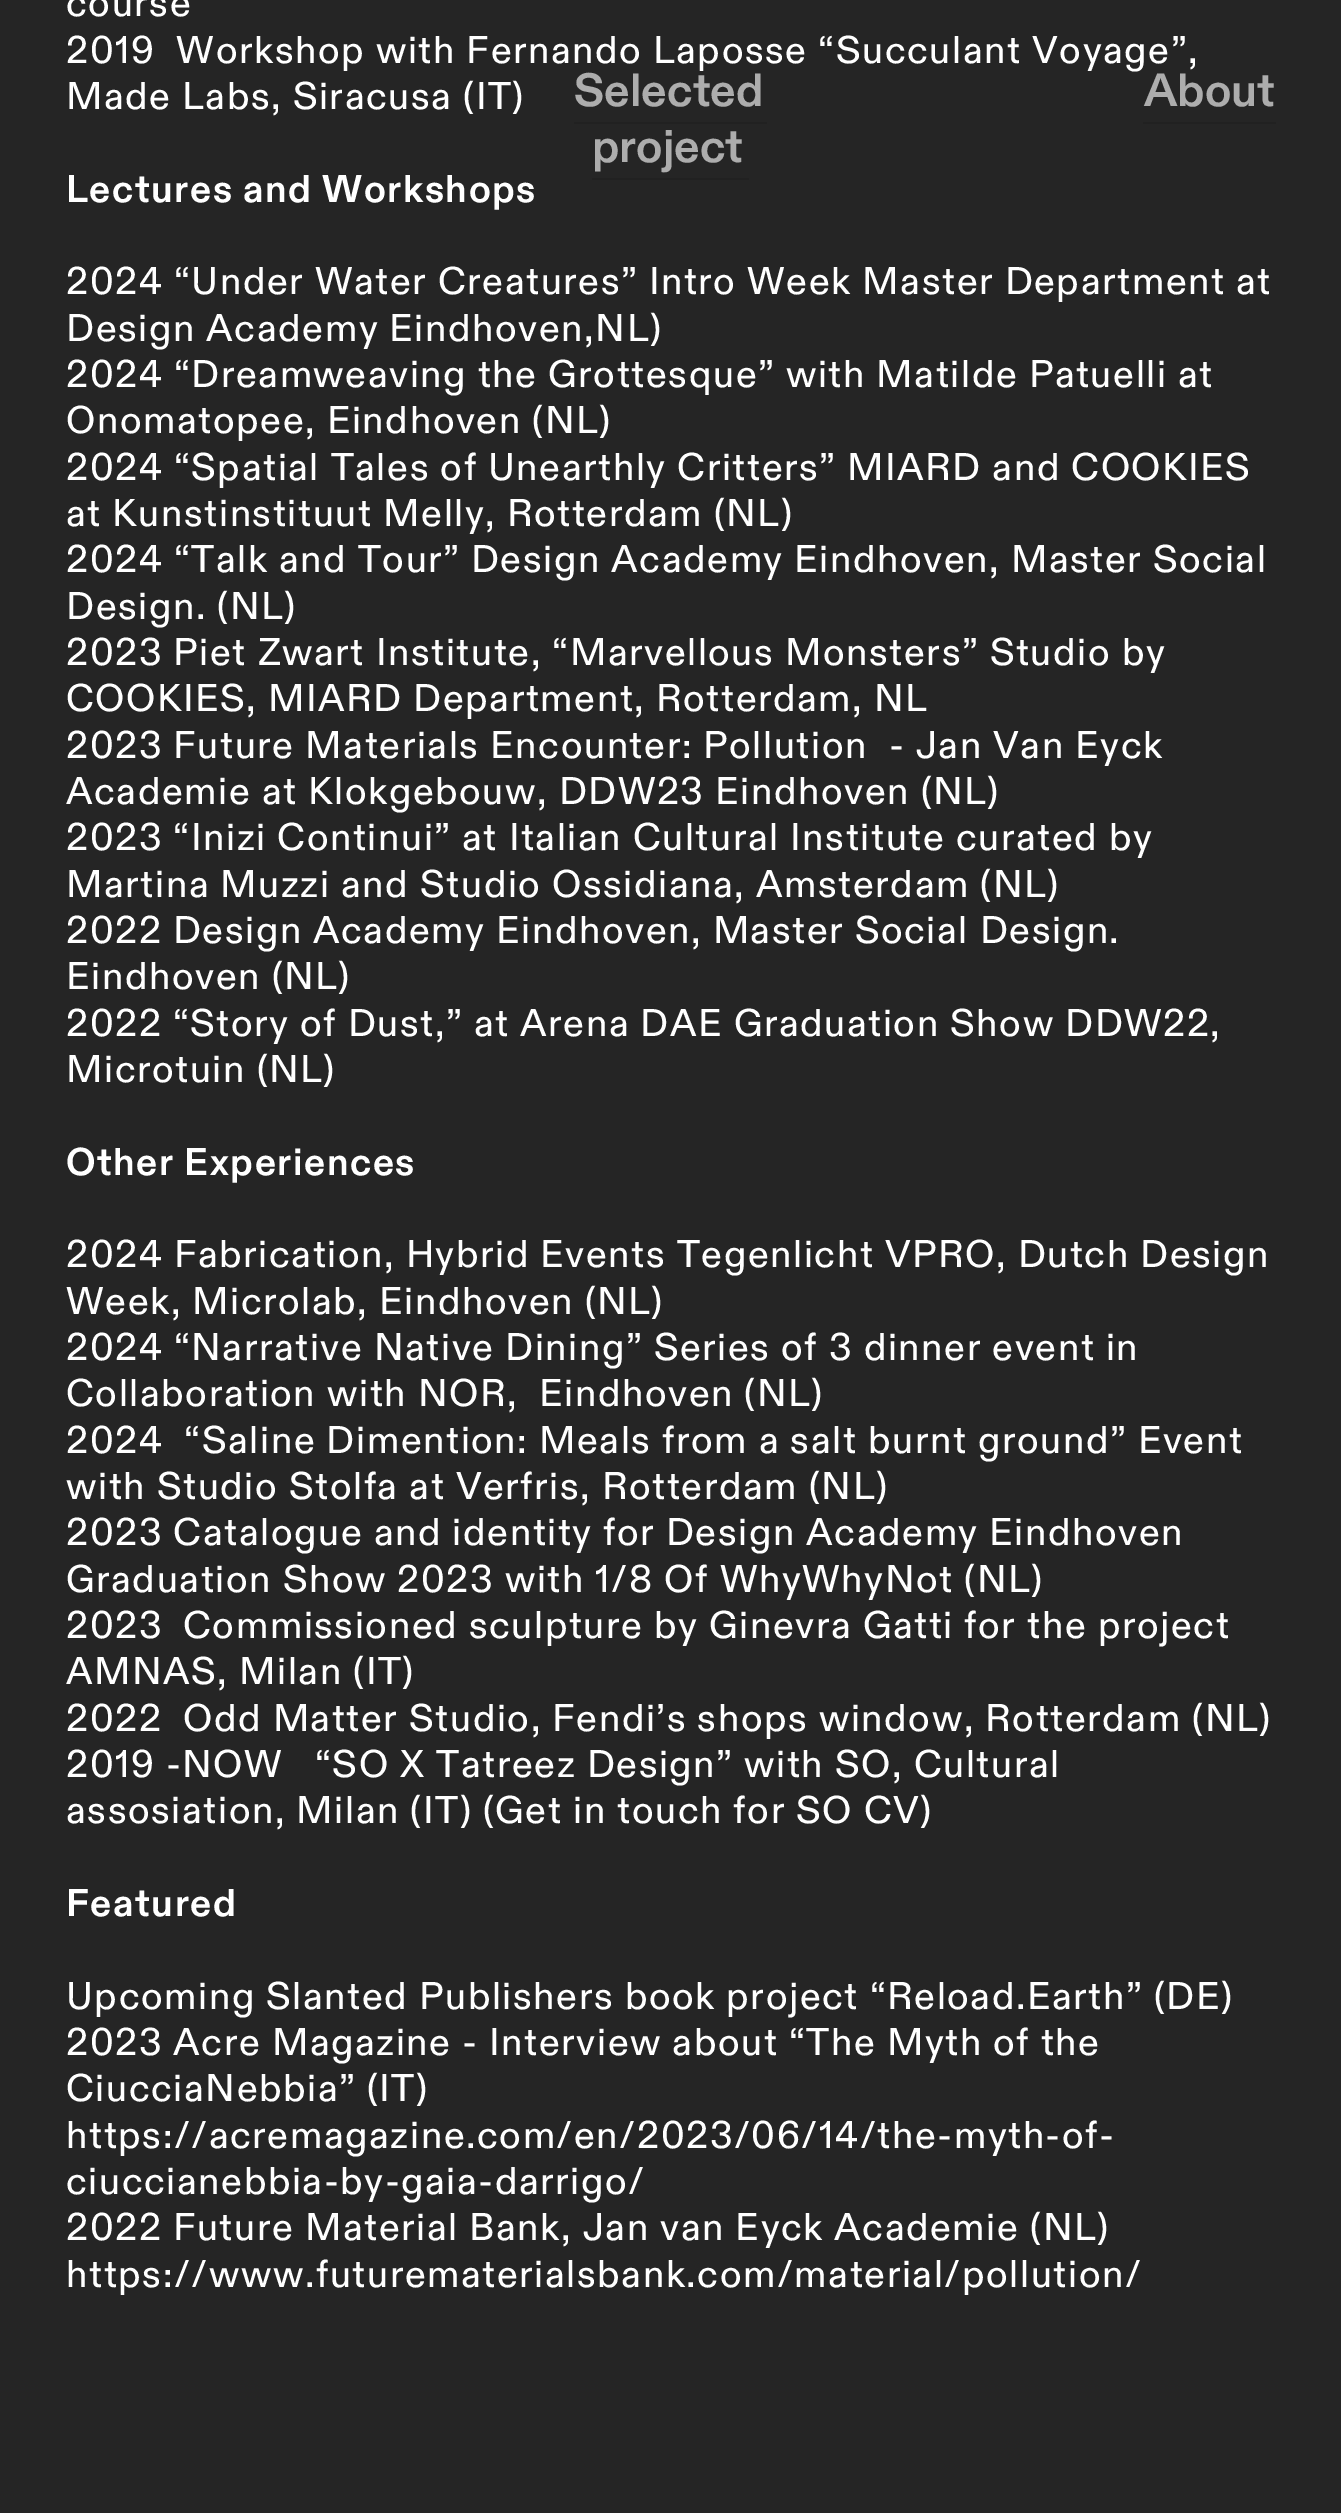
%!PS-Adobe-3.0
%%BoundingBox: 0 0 1341 2513
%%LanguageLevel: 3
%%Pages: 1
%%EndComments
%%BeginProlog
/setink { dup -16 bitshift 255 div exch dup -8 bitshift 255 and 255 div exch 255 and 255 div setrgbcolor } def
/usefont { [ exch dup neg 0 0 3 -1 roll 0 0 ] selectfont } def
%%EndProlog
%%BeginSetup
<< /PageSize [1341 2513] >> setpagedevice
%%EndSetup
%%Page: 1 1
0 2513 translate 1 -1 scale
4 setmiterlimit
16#252525 setink
0 0 1341 2513 rectfill
/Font-Regular 38.6 usefont
16#FFFFFF setink
66 16 moveto 1.55 0 (course) ashow
66 63 moveto 1.55 0 (2019  Workshop with Fernando Laposse “Succulant Voyage”,) ashow
66 109 moveto 1.55 0 (Made Labs, Siracusa \(IT\)) ashow
/Font-Bold 38.6 usefont
66 202 moveto 1.55 0 (Lectures and Workshops) ashow
/Font-Regular 38.6 usefont
66 294 moveto 1.55 0 (2024 “Under Water Creatures” Intro Week Master Department at) ashow
66 341 moveto 1.55 0 (Design Academy Eindhoven,NL\)) ashow
66 387 moveto 1.55 0 (2024 “Dreamweaving the Grottesque” with Matilde Patuelli at) ashow
66 433 moveto 1.55 0 (Onomatopee, Eindhoven \(NL\)) ashow
66 480 moveto 1.55 0 (2024 “Spatial Tales of Unearthly Critters” MIARD and COOKIES) ashow
66 526 moveto 1.55 0 (at Kunstinstituut Melly, Rotterdam \(NL\)) ashow
66 572 moveto 1.55 0 (2024 “Talk and Tour” Design Academy Eindhoven, Master Social) ashow
66 619 moveto 1.55 0 (Design. \(NL\)) ashow
66 665 moveto 1.55 0 (2023 Piet Zwart Institute, “Marvellous Monsters” Studio by) ashow
66 711 moveto 1.55 0 (COOKIES, MIARD Department, Rotterdam, NL) ashow
66 758 moveto 1.55 0 (2023 Future Materials Encounter: Pollution  - Jan Van Eyck) ashow
66 804 moveto 1.55 0 (Academie at Klokgebouw, DDW23 Eindhoven \(NL\)) ashow
66 850 moveto 1.55 0 (2023 “Inizi Continui” at Italian Cultural Institute curated by) ashow
66 897 moveto 1.55 0 (Martina Muzzi and Studio Ossidiana, Amsterdam \(NL\)) ashow
66 943 moveto 1.55 0 (2022 Design Academy Eindhoven, Master Social Design.) ashow
66 989 moveto 1.55 0 (Eindhoven \(NL\)) ashow
66 1036 moveto 1.55 0 (2022 “Story of Dust,” at Arena DAE Graduation Show DDW22,) ashow
66 1082 moveto 1.55 0 (Microtuin \(NL\)) ashow
/Font-Bold 38.6 usefont
66 1175 moveto 1.55 0 (Other Experiences) ashow
/Font-Regular 38.6 usefont
66 1267 moveto 1.55 0 (2024 Fabrication, Hybrid Events Tegenlicht VPRO, Dutch Design) ashow
66 1314 moveto 1.55 0 (Week, Microlab, Eindhoven \(NL\)) ashow
66 1360 moveto 1.55 0 (2024 “Narrative Native Dining” Series of 3 dinner event in) ashow
66 1406 moveto 1.55 0 (Collaboration with NOR,  Eindhoven \(NL\)) ashow
66 1453 moveto 1.55 0 (2024  “Saline Dimention: Meals from a salt burnt ground” Event) ashow
66 1499 moveto 1.55 0 (with Studio Stolfa at Verfris, Rotterdam \(NL\)) ashow
66 1545 moveto 1.55 0 (2023 Catalogue and identity for Design Academy Eindhoven) ashow
66 1592 moveto 1.55 0 (Graduation Show 2023 with 1/8 Of WhyWhyNot \(NL\)) ashow
66 1638 moveto 1.55 0 (2023) ashow
183 1638 moveto 1.55 0 (Commissioned sculpture by Ginevra Gatti for the project) ashow
66 1684 moveto 1.55 0 (AMNAS, Milan \(IT\)) ashow
66 1731 moveto 1.55 0 (2022) ashow
183 1731 moveto 1.55 0 (Odd Matter Studio, Fendi’s shops window, Rotterdam \(NL\)) ashow
66 1777 moveto 1.55 0 (2019 -NOW   “SO X Tatreez Design” with SO, Cultural) ashow
66 1823 moveto 1.55 0 (assosiation, Milan \(IT\) \(Get in touch for SO CV\)) ashow
/Font-Bold 38.6 usefont
66 1916 moveto 1.55 0 (Featured) ashow
/Font-Regular 38.6 usefont
66 2009 moveto 1.55 0 (Upcoming Slanted Publishers book project “Reload.Earth” \(DE\)) ashow
66 2055 moveto 1.55 0 (2023 Acre Magazine - Interview about “The Myth of the) ashow
66 2101 moveto 1.55 0 (CiucciaNebbia” \(IT\)) ashow
66 2148 moveto 1.55 0 (https://acremagazine.com/en/2023/06/14/the-myth-of-) ashow
66 2194 moveto 1.55 0 (ciuccianebbia-by-gaia-darrigo/) ashow
66 2240 moveto 1.55 0 (2022 Future Material Bank, Jan van Eyck Academie \(NL\)) ashow
66 2287 moveto 1.55 0 (https://www.futurematerialsbank.com/material/pollution/) ashow
/Font-Bold 46.5 usefont
16#ADADAD setink
574 106 moveto (Selected) show
592 162 moveto (project) show
16#212121 setink
574 122 193 2 rectfill
592 178 157 2 rectfill
16#ADADAD setink
1144 106 moveto (About) show
16#212121 setink
1143 122 133 2 rectfill
showpage
%%EOF
